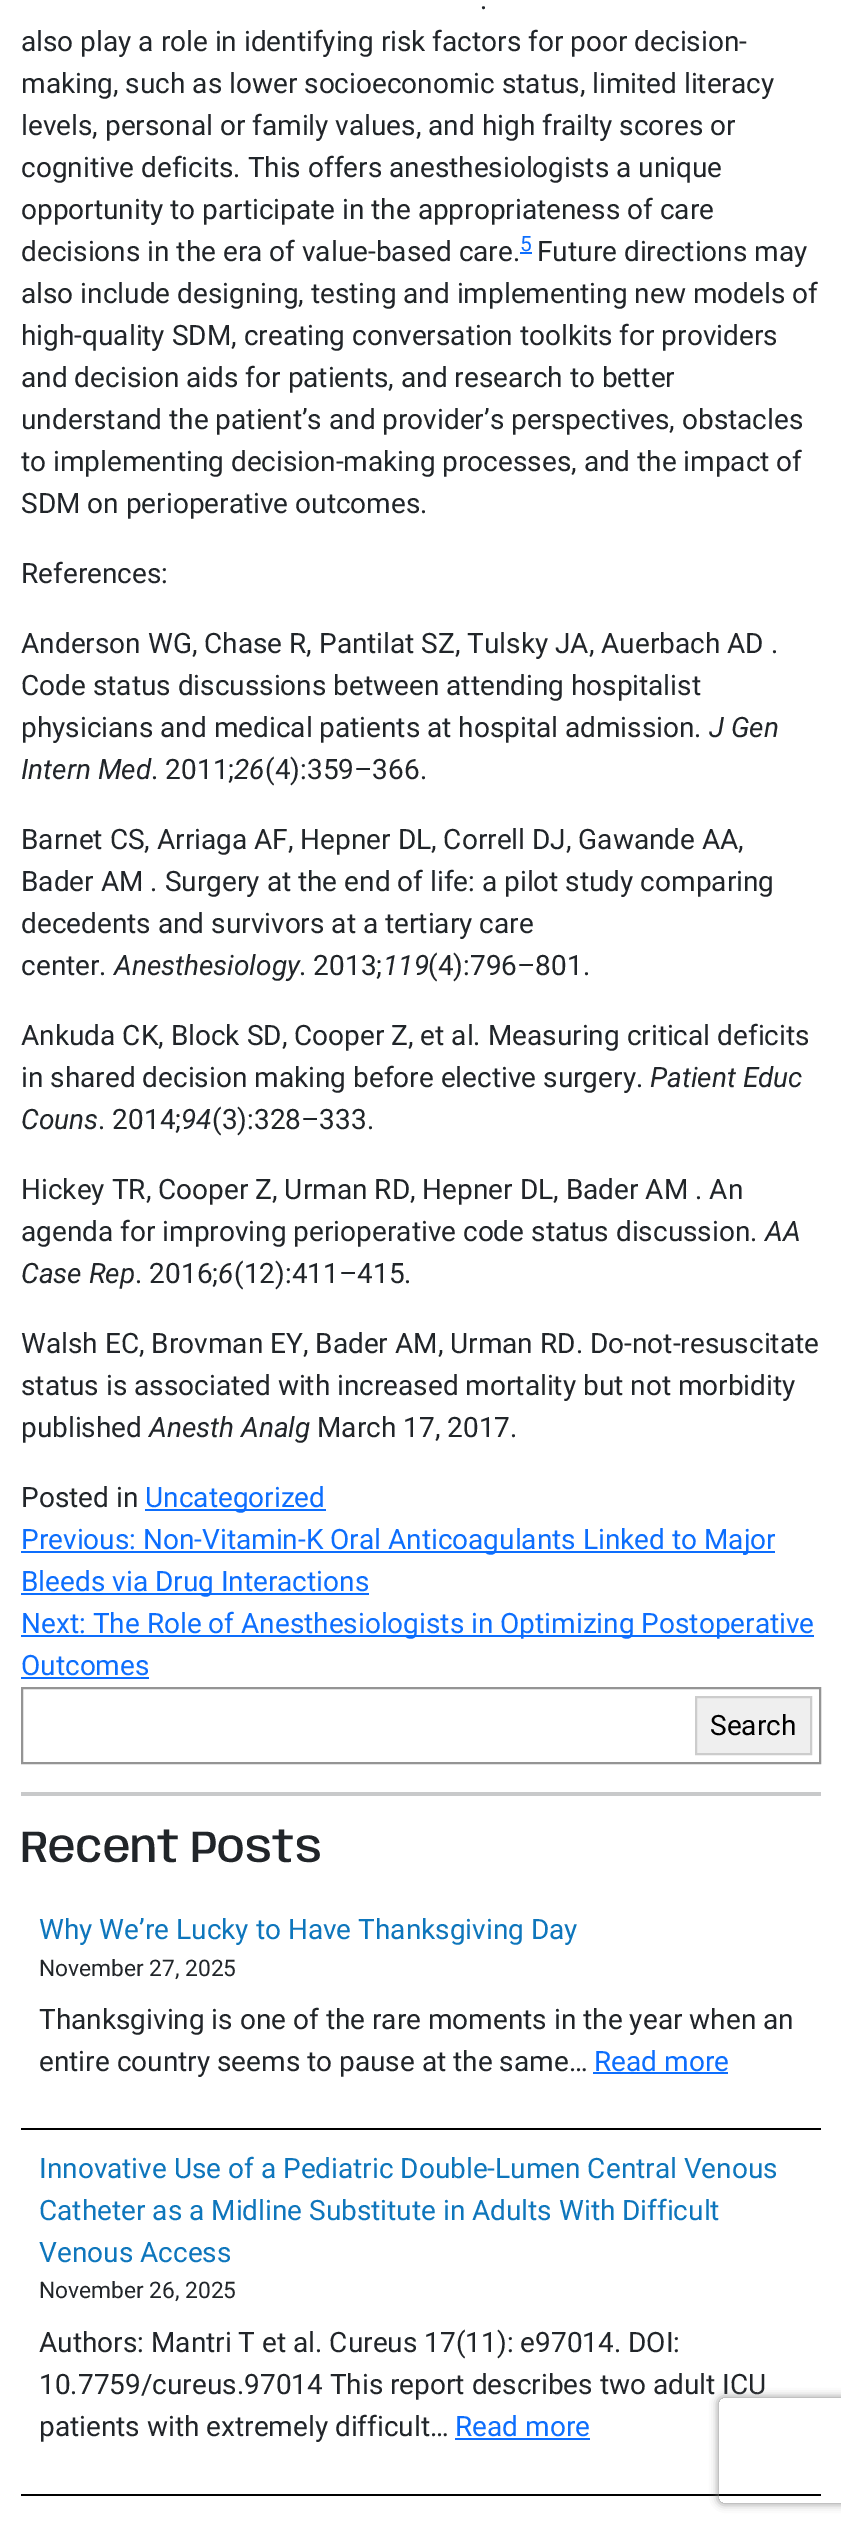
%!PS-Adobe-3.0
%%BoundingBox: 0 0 841 2526
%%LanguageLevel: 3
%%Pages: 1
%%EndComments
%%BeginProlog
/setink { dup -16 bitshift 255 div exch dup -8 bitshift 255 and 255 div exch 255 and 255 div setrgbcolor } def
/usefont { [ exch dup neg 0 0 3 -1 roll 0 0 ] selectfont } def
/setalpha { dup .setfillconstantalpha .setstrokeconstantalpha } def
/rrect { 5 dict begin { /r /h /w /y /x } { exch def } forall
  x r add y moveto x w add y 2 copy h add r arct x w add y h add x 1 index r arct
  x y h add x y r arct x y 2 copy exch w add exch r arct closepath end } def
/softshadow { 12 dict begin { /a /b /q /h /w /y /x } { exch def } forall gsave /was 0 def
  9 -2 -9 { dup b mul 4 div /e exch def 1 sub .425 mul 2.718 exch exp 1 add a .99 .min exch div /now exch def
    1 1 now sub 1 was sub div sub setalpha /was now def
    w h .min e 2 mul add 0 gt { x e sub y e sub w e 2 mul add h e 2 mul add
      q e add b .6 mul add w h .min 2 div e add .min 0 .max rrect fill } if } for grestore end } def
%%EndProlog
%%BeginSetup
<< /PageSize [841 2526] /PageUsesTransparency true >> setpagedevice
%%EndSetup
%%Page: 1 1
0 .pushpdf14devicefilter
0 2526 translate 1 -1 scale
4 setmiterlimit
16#FFFFFF setink
0 0 841 2526 rectfill
/Roboto-Regular 28 usefont
16#212529 setink
[
    [(.) 480 9]
    [(also play a role in identifying risk factors for poor decision-) 21 51]
    [(making, such as lower socioeconomic status, limited literacy) 21 93]
    [(levels, personal or family values, and high frailty scores or) 21 135]
    [(cognitive deficits. This offers anesthesiologists a unique) 21 177]
    [(opportunity to participate in the appropriateness of care) 21 219]
    [(decisions in the era of value-based care.) 21 261]
] { aload pop moveto show } forall
/Roboto-Regular 21 usefont
16#0D6EFD setink
520 251 moveto (5) show
520 252 12 2 rectfill
/Roboto-Regular 28 usefont
16#212529 setink
[
    [(Future directions may) 537 261]
    [(also include designing, testing and implementing new models of) 21 303]
    [(high-quality SDM, creating conversation toolkits for providers) 21 345]
    [(and decision aids for patients, and research to better) 21 387]
    [(understand the patient’s and provider’s perspectives, obstacles) 21 429]
    [(to implementing decision-making processes, and the impact of) 21 471]
    [(SDM on perioperative outcomes.) 21 513]
    [(References:) 21 583]
    [(Anderson WG, Chase R, Pantilat SZ, Tulsky JA, Auerbach AD .) 21 653]
    [(Code status discussions between attending hospitalist) 21 695]
    [(physicians and medical patients at hospital admission.) 21 737]
] { aload pop moveto show } forall
/Roboto-Italic 28 usefont
709 737 moveto (J Gen) show
21 779 moveto (Intern Med) show
/Roboto-Regular 28 usefont
151 779 moveto (. 2011;) show
/Roboto-Italic 28 usefont
234 779 moveto (26) show
/Roboto-Regular 28 usefont
[
    [(\(4\):359–366.) 265 779]
    [(Barnet CS, Arriaga AF, Hepner DL, Correll DJ, Gawande AA,) 21 849]
    [(Bader AM . Surgery at the end of life: a pilot study comparing) 21 891]
    [(decedents and survivors at a tertiary care) 21 933]
    [(center.) 21 975]
] { aload pop moveto show } forall
/Roboto-Italic 28 usefont
114 975 moveto (Anesthesiology) show
/Roboto-Regular 28 usefont
299 975 moveto (. 2013;) show
/Roboto-Italic 28 usefont
383 975 moveto (119) show
/Roboto-Regular 28 usefont
[
    [(\(4\):796–801.) 428 975]
    [(Ankuda CK, Block SD, Cooper Z, et al. Measuring critical deficits) 21 1045]
    [(in shared decision making before elective surgery.) 21 1087]
] { aload pop moveto show } forall
/Roboto-Italic 28 usefont
650 1087 moveto (Patient Educ) show
21 1129 moveto (Couns) show
/Roboto-Regular 28 usefont
98 1129 moveto (. 2014;) show
/Roboto-Italic 28 usefont
181 1129 moveto (94) show
/Roboto-Regular 28 usefont
[
    [(\(3\):328–333.) 212 1129]
    [(Hickey TR, Cooper Z, Urman RD, Hepner DL, Bader AM . An) 21 1199]
    [(agenda for improving perioperative code status discussion.) 21 1241]
] { aload pop moveto show } forall
/Roboto-Italic 28 usefont
765 1241 moveto (AA) show
21 1283 moveto (Case Rep) show
/Roboto-Regular 28 usefont
135 1283 moveto (. 2016;) show
/Roboto-Italic 28 usefont
218 1283 moveto (6) show
/Roboto-Regular 28 usefont
[
    [(\(12\):411–415.) 234 1283]
    [(Walsh EC, Brovman EY, Bader AM, Urman RD. Do-not-resuscitate) 21 1353]
    [(status is associated with increased mortality but not morbidity) 21 1395]
    [(published) 21 1437]
] { aload pop moveto show } forall
/Roboto-Italic 28 usefont
149 1437 moveto (Anesth Analg) show
/Roboto-Regular 28 usefont
317 1437 moveto (March 17, 2017.) show
21 1507 moveto (Posted in) show
16#0D6EFD setink
145 1509 181 2 rectfill
145 1507 moveto (Uncategorized) show
21 1551 754 2 rectfill
21 1549 moveto (Previous: Non-Vitamin-K Oral Anticoagulants Linked to Major) show
21 1593 348 2 rectfill
21 1591 moveto (Bleeds via Drug Interactions) show
21 1635 793 2 rectfill
21 1633 moveto (Next: The Role of Anesthesiologists in Optimizing Postoperative) show
21 1675 moveto (Outcomes) show
21 1677 128 2 rectfill
16#949494 setink
2 setlinewidth
22 1688 798 75 rectstroke
16#EFEFEF setink
696 1697 moveto 811 1697 lineto 811 1754 lineto 696 1754 lineto closepath gsave fill grestore
16#CCCCCC setink
stroke
16#000000 setink
710 1735 moveto (Search) show
16#C8C9CA setink
21 1792 800 4 rectfill
/Anybody-Medium 44.75 usefont
16#212529 setink
21 1862 moveto (Recent Posts) show
16#000000 setink
21 2128 800 2 rectfill
/Roboto-Regular 28 usefont
16#0E76BC setink
39 1939 moveto (Why We’re Lucky to Have Thanksgiving Day) show
/Roboto-Regular 22.75 usefont
16#212529 setink
39 1976 moveto (November 27, 2025) show
/Roboto-Regular 28 usefont
39 2029 moveto (Thanksgiving is one of the rare moments in the year when an) show
39 2071 moveto (entire country seems to pause at the same…) show
16#0D6EFD setink
594 2071 moveto (Read more) show
593 2072 135 2 rectfill
16#000000 setink
21 2494 800 2 rectfill
16#0E76BC setink
[
    [(Innovative Use of a Pediatric Double-Lumen Central Venous) 39 2178]
    [(Catheter as a Midline Substitute in Adults With Difficult) 39 2220]
    [(Venous Access) 39 2262]
] { aload pop moveto show } forall
/Roboto-Regular 22.75 usefont
16#212529 setink
39 2298 moveto (November 26, 2025) show
/Roboto-Regular 28 usefont
[
    [(Authors: Mantri T et al. Cureus 17\(11\): e97014. DOI:) 39 2352]
    [(10.7759/cureus.97014 This report describes two adult ICU) 39 2394]
    [(patients with extremely difficult…) 39 2436]
] { aload pop moveto show } forall
16#0D6EFD setink
455 2436 moveto (Read more) show
455 2438 135 2 rectfill
gsave
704 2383 moveto 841 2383 lineto 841 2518 lineto 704 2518 lineto closepath 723 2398 moveto 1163 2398 lineto 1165 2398 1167 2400 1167 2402 curveto 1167 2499 lineto 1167 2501 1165 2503 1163 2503 curveto 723 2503 lineto 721 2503 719 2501 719 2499 curveto 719 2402 lineto 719 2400 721 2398 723 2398 curveto closepath eoclip newpath
16#808080 setink
719 2398 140 105 4 4.5 1 softshadow
grestore
.poppdf14devicefilter showpage
%%EOF
